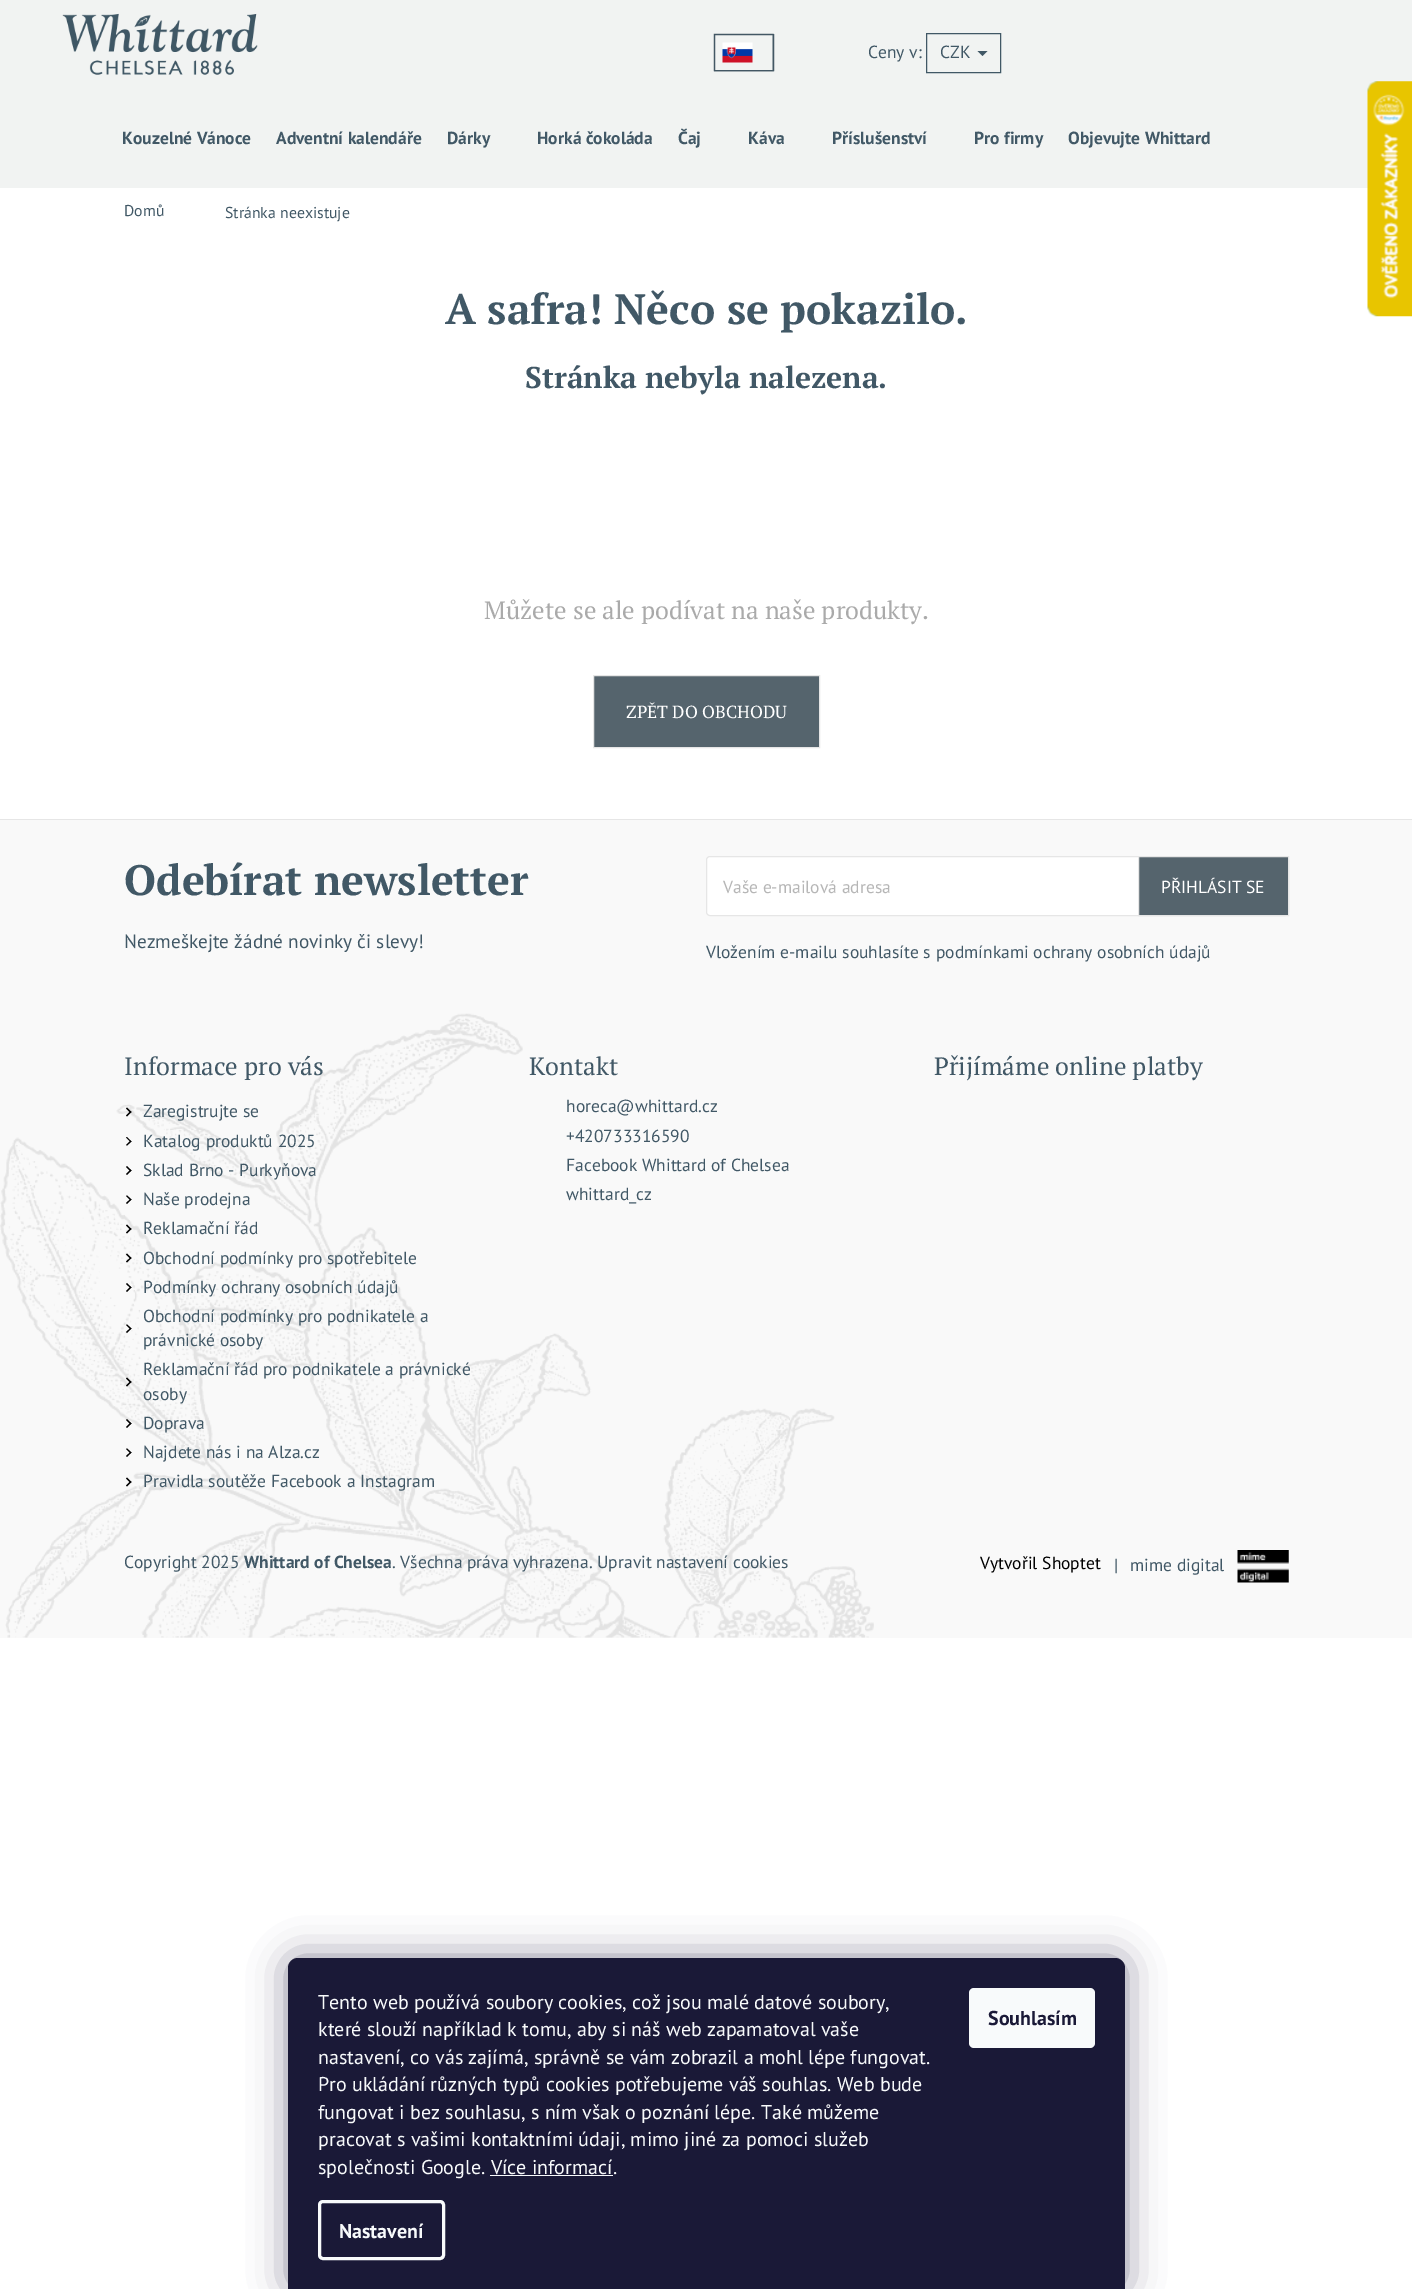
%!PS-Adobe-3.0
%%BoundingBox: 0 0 1412 2289
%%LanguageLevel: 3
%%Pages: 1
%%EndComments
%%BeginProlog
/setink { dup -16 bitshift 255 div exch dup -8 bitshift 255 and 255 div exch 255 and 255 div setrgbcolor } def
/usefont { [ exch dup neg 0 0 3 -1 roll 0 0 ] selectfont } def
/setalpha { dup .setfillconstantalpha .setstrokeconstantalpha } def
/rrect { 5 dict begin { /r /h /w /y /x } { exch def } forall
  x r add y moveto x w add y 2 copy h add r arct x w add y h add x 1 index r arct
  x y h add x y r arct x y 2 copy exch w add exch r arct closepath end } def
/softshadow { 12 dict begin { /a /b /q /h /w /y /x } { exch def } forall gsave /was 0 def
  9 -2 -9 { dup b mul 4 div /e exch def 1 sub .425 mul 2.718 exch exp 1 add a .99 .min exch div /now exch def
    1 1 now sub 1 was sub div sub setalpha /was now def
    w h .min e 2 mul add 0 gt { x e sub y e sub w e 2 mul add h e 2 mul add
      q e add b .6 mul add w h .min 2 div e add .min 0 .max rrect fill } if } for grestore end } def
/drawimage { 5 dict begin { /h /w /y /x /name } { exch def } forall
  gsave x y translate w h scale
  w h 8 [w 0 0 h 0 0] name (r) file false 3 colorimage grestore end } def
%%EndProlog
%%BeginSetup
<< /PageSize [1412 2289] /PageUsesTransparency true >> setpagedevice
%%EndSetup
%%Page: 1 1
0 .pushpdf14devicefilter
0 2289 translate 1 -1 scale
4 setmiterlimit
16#FFFFFF setink
0 0 1412 2289 rectfill
16#F1F3F2 setink
0 0 1412 188 rectfill
(img1.raw) 62 13 196 62 drawimage
(img2.raw) 713 33 61 39 drawimage
16#435764 setink
714.5 34.5 59 36 rectstroke
/PTSans-Regular 17.5 usefont
16#415866 setink
868 58 moveto (Ceny v:) show
926.5 33.5 74 39 rectstroke
940 58 moveto (CZK) show
977.5 51 moveto 987.5 51 lineto 982.5 56 lineto closepath fill
/PTSans-Bold 17.5 usefont
[
    [(Kouzelné Vánoce) 122 144]
    [(Adventní kalendáře) 276 144]
    [(Dárky) 447 144]
    [(Horká čokoláda) 537 144]
    [(Čaj) 678 144]
    [(Káva) 748 144]
    [(Příslušenství) 832 144]
    [(Pro firmy) 974 144]
    [(Objevujte Whittard) 1068 144]
] { aload pop moveto show } forall
/PTSans-Regular 15.75 usefont
124 216 moveto (Domů) show
225 218 moveto (Stránka neexistuje) show
/PTSerif-Bold 42.5 usefont
445 324 moveto (A safra! Něco se pokazilo.) show
/PTSerif-Bold 30 usefont
525 388 moveto (Stránka nebyla nalezena.) show
/PTSerif-Regular 25 usefont
16#AAAAAA setink
484 619 moveto (Můžete se ale podívat na naše produkty.) show
16#55646D setink
593.5 675.5 moveto 819.5 675.5 lineto 819.5 747.5 lineto 593.5 747.5 lineto closepath gsave fill grestore
16#E6E6E6 setink
stroke
/PTSerif-Regular 17.5 usefont
16#FFFFFF setink
626 718 moveto (ZPĚT DO OBCHODU) show
16#F9F9F9 setink
0 820 1412 818 rectfill
(img3.raw) 0 1013 874 625 drawimage
16#E6E6E6 setink
0 819 1412 1 rectfill
/PTSerif-Bold 42.5 usefont
16#415866 setink
124 895 moveto (Odebírat newsletter) show
/PTSans-Regular 19.25 usefont
124 948 moveto (Nezmeškejte žádné novinky či slevy!) show
16#FFFFFF setink
706.5 856.5 582 59 3.5 rrect gsave fill grestore
16#E6E6E6 setink
stroke
/PTSans-Regular 17.5 usefont
16#B6B6B6 setink
723 893 moveto (Vaše e-mailová adresa) show
16#55646D setink
1138.5 856.5 moveto 1288.5 856.5 lineto 1288.5 915.5 lineto 1138.5 915.5 lineto closepath gsave fill grestore
16#E6E6E6 setink
stroke
16#FFFFFF setink
1161 893 moveto (PŘIHLÁSIT SE) show
16#415866 setink
706 958 moveto (Vložením e-mailu souhlasíte s) show
936 958 moveto (podmínkami ochrany osobních údajů) show
/PTSerif-Regular 25 usefont
124 1075 moveto (Informace pro vás) show
16#000000 setink
126 1108.5 moveto 127 1107.5 lineto 131.5 1112 lineto 130.5 1113 lineto closepath fill
126 1115.5 moveto 130.5 1111 lineto 131.5 1112 lineto 127 1116.5 lineto closepath fill
/PTSans-Regular 17.5 usefont
16#415866 setink
143 1117 moveto (Zaregistrujte se) show
16#000000 setink
126 1137.5 moveto 127 1137 lineto 131.5 1141.5 lineto 130.5 1142 lineto closepath fill
126 1145 moveto 130.5 1140.5 lineto 131.5 1141.5 lineto 127 1145.5 lineto closepath fill
16#415866 setink
143 1147 moveto (Katalog produktů 2025) show
16#000000 setink
126 1167 moveto 127 1166 lineto 131.5 1170.5 lineto 130.5 1171.5 lineto closepath fill
126 1174 moveto 130.5 1169.5 lineto 131.5 1170.5 lineto 127 1175 lineto closepath fill
16#415866 setink
143 1176 moveto (Sklad Brno - Purkyňova) show
16#000000 setink
126 1196 moveto 127 1195.5 lineto 131.5 1199.5 lineto 130.5 1200.5 lineto closepath fill
126 1203 moveto 130.5 1199 lineto 131.5 1199.5 lineto 127 1204 lineto closepath fill
16#415866 setink
143 1205 moveto (Naše prodejna) show
16#000000 setink
126 1225.5 moveto 127 1224.5 lineto 131.5 1229 lineto 130.5 1230 lineto closepath fill
126 1232.5 moveto 130.5 1228 lineto 131.5 1229 lineto 127 1233.5 lineto closepath fill
16#415866 setink
143 1234 moveto (Reklamační řád) show
16#000000 setink
126 1254.5 moveto 127 1253.5 lineto 131.5 1258 lineto 130.5 1259 lineto closepath fill
126 1261.5 moveto 130.5 1257.5 lineto 131.5 1258 lineto 127 1262.5 lineto closepath fill
16#415866 setink
143 1264 moveto (Obchodní podmínky pro spotřebitele) show
16#000000 setink
126 1284 moveto 127 1283 lineto 131.5 1287.5 lineto 130.5 1288 lineto closepath fill
126 1291 moveto 130.5 1286.5 lineto 131.5 1287.5 lineto 127 1292 lineto closepath fill
16#415866 setink
143 1293 moveto (Podmínky ochrany osobních údajů) show
143 1322 moveto (Obchodní podmínky pro podnikatele a) show
16#000000 setink
126 1325 moveto 127 1324.5 lineto 131.5 1328.5 lineto 130.5 1329.5 lineto closepath fill
126 1332 moveto 130.5 1328 lineto 131.5 1328.5 lineto 127 1333 lineto closepath fill
16#415866 setink
143 1346 moveto (právnické osoby) show
143 1375 moveto (Reklamační řád pro podnikatele a právnické) show
16#000000 setink
126 1378.5 moveto 127 1377.5 lineto 131.5 1382 lineto 130.5 1383 lineto closepath fill
126 1385.5 moveto 130.5 1381 lineto 131.5 1382 lineto 127 1386.5 lineto closepath fill
16#415866 setink
143 1400 moveto (osoby) show
16#000000 setink
126 1420 moveto 127 1419 lineto 131.5 1423.5 lineto 130.5 1424.5 lineto closepath fill
126 1427 moveto 130.5 1422.5 lineto 131.5 1423.5 lineto 127 1428 lineto closepath fill
16#415866 setink
143 1429 moveto (Doprava) show
16#000000 setink
126 1449 moveto 127 1448.5 lineto 131.5 1452.5 lineto 130.5 1453.5 lineto closepath fill
126 1456 moveto 130.5 1452 lineto 131.5 1452.5 lineto 127 1457 lineto closepath fill
16#415866 setink
143 1458 moveto (Najdete nás i na Alza.cz) show
16#000000 setink
126 1478.5 moveto 127 1477.5 lineto 131.5 1482 lineto 130.5 1483 lineto closepath fill
126 1485.5 moveto 130.5 1481 lineto 131.5 1482 lineto 127 1486.5 lineto closepath fill
16#415866 setink
143 1487 moveto (Pravidla soutěže Facebook a Instagram) show
/PTSerif-Regular 25 usefont
529 1075 moveto (Kontakt) show
/PTSans-Regular 17.5 usefont
[
    [(horeca@whittard.cz) 566 1112]
    [(+420733316590) 566 1142]
    [(Facebook Whittard of Chelsea) 566 1171]
    [(whittard_cz) 566 1200]
] { aload pop moveto show } forall
/PTSerif-Regular 25 usefont
934 1075 moveto (Přijímáme online platby) show
/PTSans-Regular 17.5 usefont
124 1568 moveto (Copyright 2025) show
/PTSans-Bold 17.5 usefont
244 1568 moveto (Whittard of Chelsea) show
/PTSans-Regular 17.5 usefont
392 1568 moveto (. Všechna práva vyhrazena.) show
597 1568 moveto (Upravit nastavení cookies) show
16#000000 setink
980 1569 moveto (Vytvořil Shoptet) show
16#415866 setink
1114 1571 moveto (|) show
1130 1571 moveto (mime digital) show
(img4.raw) 1237 1550 52 33 drawimage
(img5.raw) 1367 81 45 236 drawimage
16#1B1939 setink
288 1958 837 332 10 19 0.5 softshadow
16#1A1937 setink
298 1958 moveto 1115 1958 lineto 1120.5 1958 1125 1962.5 1125 1968 curveto 1125 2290 lineto 288 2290 lineto 288 1968 lineto 288 1962.5 292.5 1958 298 1958 curveto closepath fill
/PTSans-Regular 20 usefont
16#F8FAFB setink
[
    [(Tento web používá soubory cookies, což jsou malé datové soubory,) 318 2009]
    [(které slouží například k tomu, aby si náš web zapamatoval vaše) 318 2036]
    [(nastavení, co vás zajímá, správně se vám zobrazil a mohl lépe fungovat.) 318 2064]
    [(Pro ukládání různých typů cookies potřebujeme váš souhlas. Web bude) 318 2091]
    [(fungovat i bez souhlasu, s ním však o poznání lépe. Také můžeme) 318 2119]
    [(pracovat s vašimi kontaktními údaji, mimo jiné za pomoci služeb) 318 2146]
    [(společnosti Google. Více informací.) 318 2174]
] { aload pop moveto show } forall
490 2175 123 1 rectfill
3 setlinewidth
319.5 2201.5 124 57 3.5 rrect stroke
/PTSans-Bold 20 usefont
339 2238 moveto (Nastavení) show
969 1988 126 60 5 rrect fill
16#1A1937 setink
988 2025 moveto (Souhlasím) show
.poppdf14devicefilter showpage
%%EOF
